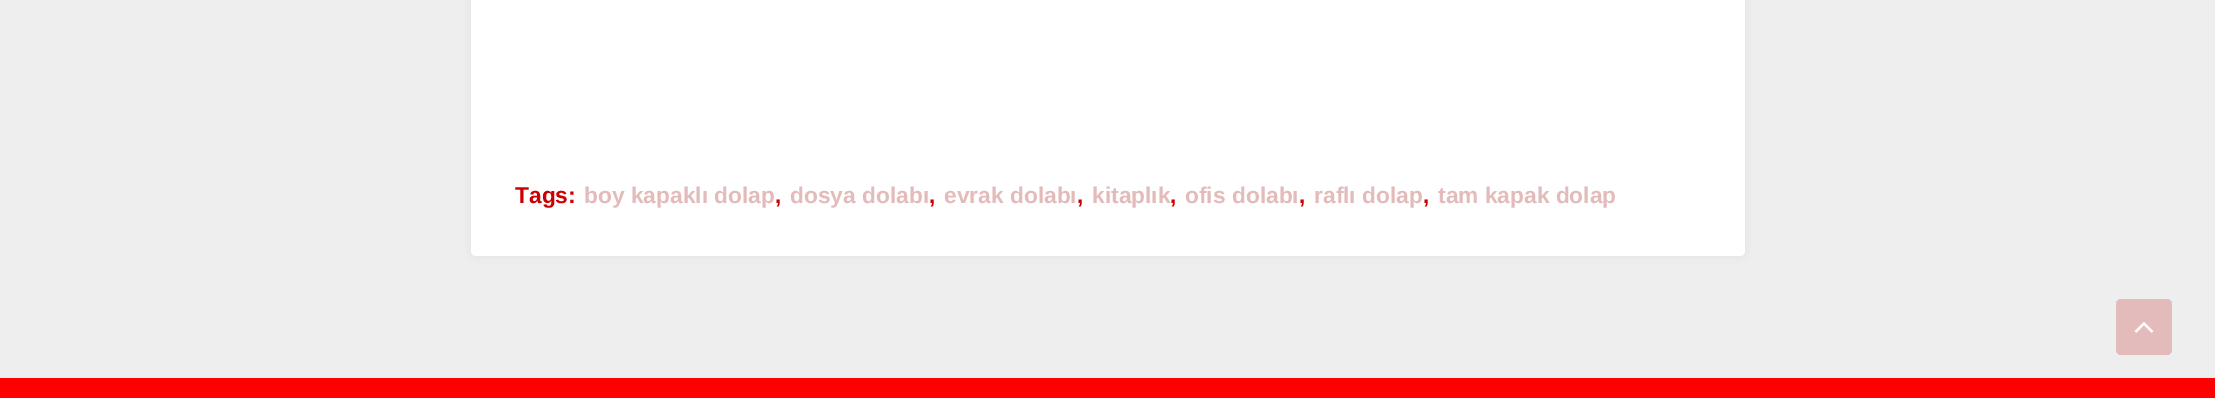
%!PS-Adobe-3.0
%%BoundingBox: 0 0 2215 398
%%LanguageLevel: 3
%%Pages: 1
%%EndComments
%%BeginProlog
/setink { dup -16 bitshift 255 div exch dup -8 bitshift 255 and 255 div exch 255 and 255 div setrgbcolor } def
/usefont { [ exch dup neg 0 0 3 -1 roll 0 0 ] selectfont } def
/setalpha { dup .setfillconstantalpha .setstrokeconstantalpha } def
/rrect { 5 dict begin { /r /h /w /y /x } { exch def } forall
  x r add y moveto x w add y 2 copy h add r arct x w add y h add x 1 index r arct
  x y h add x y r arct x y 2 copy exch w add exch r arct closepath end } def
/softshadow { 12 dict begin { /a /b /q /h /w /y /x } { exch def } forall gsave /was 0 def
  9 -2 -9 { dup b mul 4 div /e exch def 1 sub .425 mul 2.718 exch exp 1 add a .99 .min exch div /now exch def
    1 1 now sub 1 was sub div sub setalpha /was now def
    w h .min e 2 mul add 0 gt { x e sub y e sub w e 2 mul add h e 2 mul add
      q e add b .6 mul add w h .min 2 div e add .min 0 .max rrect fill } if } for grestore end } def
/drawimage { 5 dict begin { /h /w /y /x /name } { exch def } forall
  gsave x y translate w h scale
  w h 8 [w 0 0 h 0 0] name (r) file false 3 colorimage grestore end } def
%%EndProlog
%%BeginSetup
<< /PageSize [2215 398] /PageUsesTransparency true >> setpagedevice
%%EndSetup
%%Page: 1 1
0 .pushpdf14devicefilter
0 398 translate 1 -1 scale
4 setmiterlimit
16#EEEEEE setink
0 0 2215 398 rectfill
16#000000 setink
471 -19 1274 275 5 4.5 0.05 softshadow
16#FFFFFF setink
471 -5 1274 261 5 rrect fill
/LiberationSans-Bold 22.75 usefont
16#CC0000 setink
515 203 moveto (Tags:) show
16#E3BBBB setink
584 203 moveto (boy kapaklı dolap) show
16#CC0000 setink
775 203 moveto (,) show
16#E3BBBB setink
790 203 moveto (dosya dolabı) show
16#CC0000 setink
929 203 moveto (,) show
16#E3BBBB setink
944 203 moveto (evrak dolabı) show
16#CC0000 setink
1077 203 moveto (,) show
16#E3BBBB setink
1092 203 moveto (kitaplık) show
16#CC0000 setink
1170 203 moveto (,) show
16#E3BBBB setink
1185 203 moveto (ofis dolabı) show
16#CC0000 setink
1299 203 moveto (,) show
16#E3BBBB setink
1314 203 moveto (raflı dolap) show
16#CC0000 setink
1423 203 moveto (,) show
16#E3BBBB setink
1438 203 moveto (tam kapak dolap) show
16#FF0000 setink
0 378 2215 20 rectfill
16#E3BBBB setink
2116 299 56 56 5 rrect fill
(img1.raw) 2134 322 20 11 drawimage
.poppdf14devicefilter showpage
%%EOF
